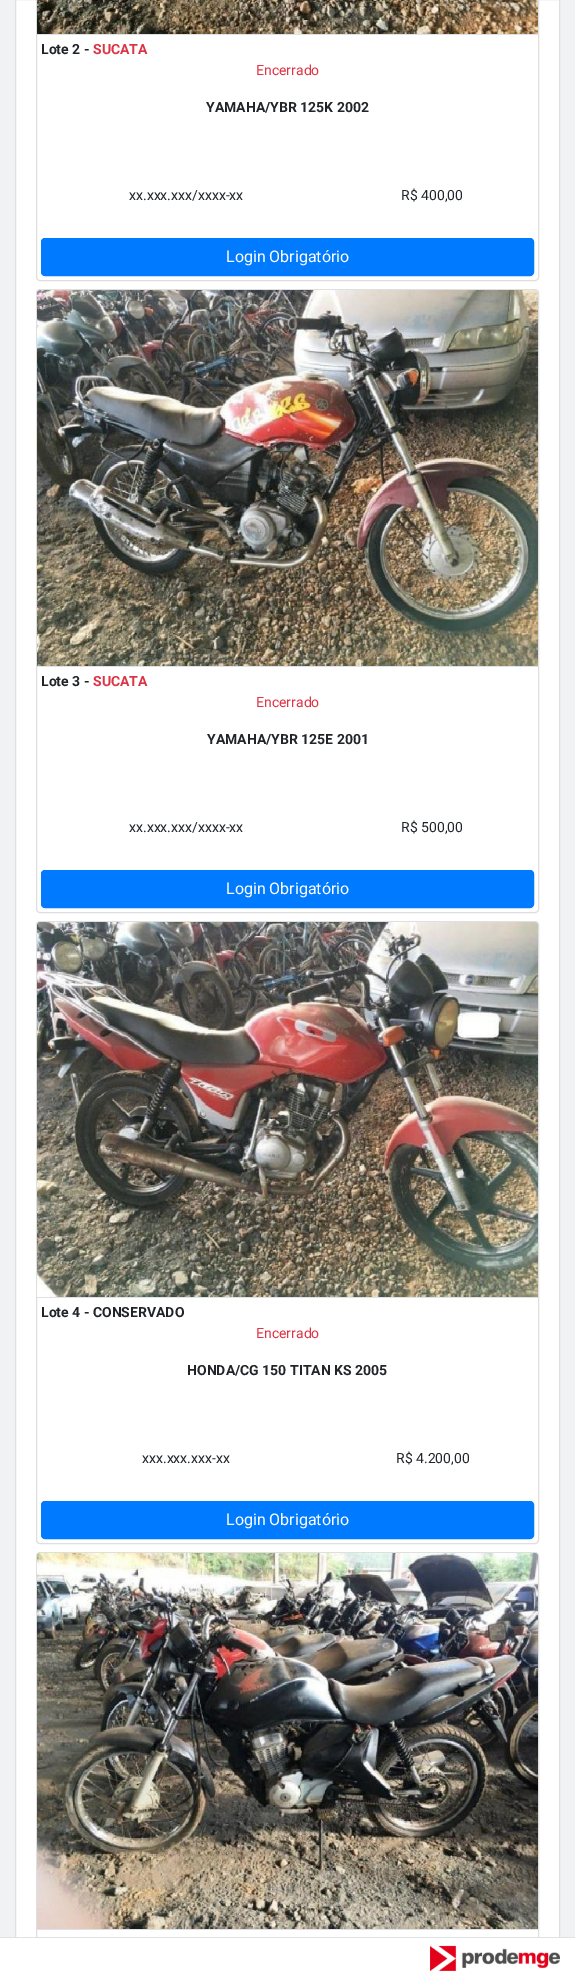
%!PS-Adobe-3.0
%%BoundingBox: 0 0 575 1979
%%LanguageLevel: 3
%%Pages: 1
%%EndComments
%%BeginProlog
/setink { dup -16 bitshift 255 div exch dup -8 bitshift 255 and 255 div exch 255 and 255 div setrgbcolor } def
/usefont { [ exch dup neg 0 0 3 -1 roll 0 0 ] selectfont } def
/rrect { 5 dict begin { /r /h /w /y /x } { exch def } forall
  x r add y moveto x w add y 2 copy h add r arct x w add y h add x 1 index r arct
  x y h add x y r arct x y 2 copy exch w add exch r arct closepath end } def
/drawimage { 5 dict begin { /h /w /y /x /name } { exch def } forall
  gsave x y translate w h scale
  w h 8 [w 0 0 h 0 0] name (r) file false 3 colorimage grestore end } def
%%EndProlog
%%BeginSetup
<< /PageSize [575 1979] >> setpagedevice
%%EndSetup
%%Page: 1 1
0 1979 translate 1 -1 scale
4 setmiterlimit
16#F1F2F3 setink
0 0 575 1979 rectfill
16#FFFFFF setink
16 0 543 1937 rectfill
16#DFDFDF setink
15.5 -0.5 544 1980 rectstroke
36.5 -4.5 502 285 3.5 rrect stroke
(img1.raw) 37 0 501 34 drawimage
16#DEE2E6 setink
37 34 501 1 rectfill
/Roboto-Bold 14 usefont
16#212529 setink
41 54 moveto (Lote 2 -) show
16#DC3545 setink
93 54 moveto (SUCATA) show
/Roboto-Regular 14 usefont
256 75 moveto (Encerrado) show
/Roboto-Bold 14 usefont
16#212529 setink
206 112 moveto (YAMAHA/YBR 125K 2002) show
/Roboto-Regular 14 usefont
129 200 moveto (xx.xxx.xxx/xxxx-xx) show
401 200 moveto (R$ 400,00) show
16#007BFF setink
41.5 238.5 492 37 3.5 rrect gsave fill grestore
stroke
/Roboto-Regular 16 usefont
16#FFFFFF setink
226 262 moveto (Login Obrigatório) show
16#DFDFDF setink
36.5 289.5 502 623 3.5 rrect stroke
(img2.raw) 37 290 501 376 drawimage
16#DEE2E6 setink
37 666 501 1 rectfill
/Roboto-Bold 14 usefont
16#212529 setink
41 686 moveto (Lote 3 -) show
16#DC3545 setink
93 686 moveto (SUCATA) show
/Roboto-Regular 14 usefont
256 707 moveto (Encerrado) show
/Roboto-Bold 14 usefont
16#212529 setink
207 744 moveto (YAMAHA/YBR 125E 2001) show
/Roboto-Regular 14 usefont
129 832 moveto (xx.xxx.xxx/xxxx-xx) show
401 832 moveto (R$ 500,00) show
16#007BFF setink
41.5 870.5 492 37 3.5 rrect gsave fill grestore
stroke
/Roboto-Regular 16 usefont
16#FFFFFF setink
226 894 moveto (Login Obrigatório) show
16#DFDFDF setink
36.5 921.5 502 622 3.5 rrect stroke
(img3.raw) 37 922 501 375 drawimage
16#DEE2E6 setink
37 1297 501 1 rectfill
/Roboto-Bold 14 usefont
16#212529 setink
41 1317 moveto (Lote 4 - CONSERVADO) show
/Roboto-Regular 14 usefont
16#DC3545 setink
256 1338 moveto (Encerrado) show
/Roboto-Bold 14 usefont
16#212529 setink
187 1375 moveto (HONDA/CG 150 TITAN KS 2005) show
/Roboto-Regular 14 usefont
142 1463 moveto (xxx.xxx.xxx-xx) show
396 1463 moveto (R$ 4.200,00) show
16#007BFF setink
41.5 1501.5 492 37 3.5 rrect gsave fill grestore
stroke
/Roboto-Regular 16 usefont
16#FFFFFF setink
226 1525 moveto (Login Obrigatório) show
16#DFDFDF setink
36.5 1552.5 502 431 3.5 rrect stroke
(img4.raw) 37 1553 501 376 drawimage
[
    [37 1929 501 1 16#DEE2E6]
    [0 1938 575 41 16#FFFFFF]
    [0 1937 575 1 16#DEE2E6]
] { aload pop setink rectfill } forall
(img5.raw) 430 1945 130 26 drawimage
showpage
%%EOF
